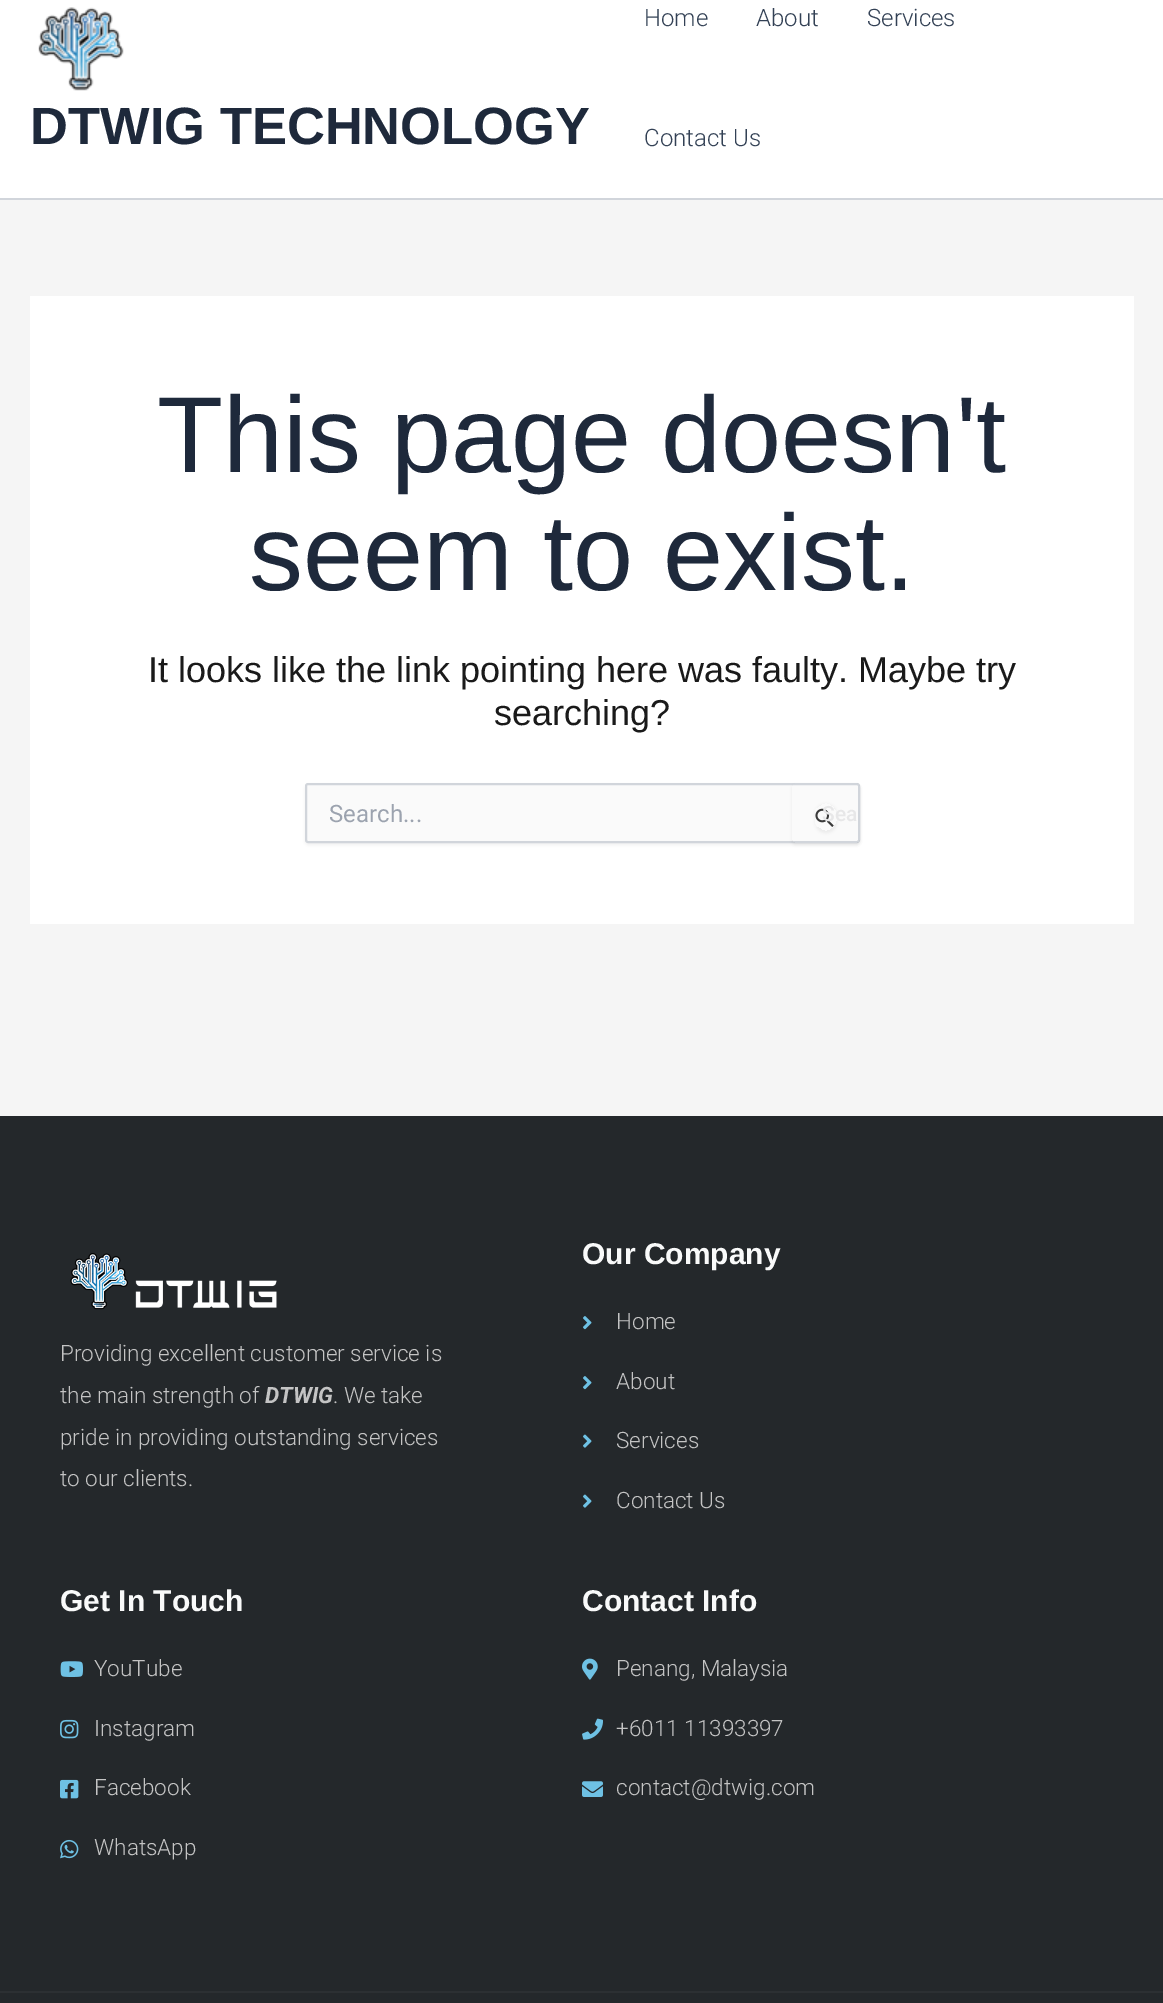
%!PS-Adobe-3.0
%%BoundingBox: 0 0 1163 2003
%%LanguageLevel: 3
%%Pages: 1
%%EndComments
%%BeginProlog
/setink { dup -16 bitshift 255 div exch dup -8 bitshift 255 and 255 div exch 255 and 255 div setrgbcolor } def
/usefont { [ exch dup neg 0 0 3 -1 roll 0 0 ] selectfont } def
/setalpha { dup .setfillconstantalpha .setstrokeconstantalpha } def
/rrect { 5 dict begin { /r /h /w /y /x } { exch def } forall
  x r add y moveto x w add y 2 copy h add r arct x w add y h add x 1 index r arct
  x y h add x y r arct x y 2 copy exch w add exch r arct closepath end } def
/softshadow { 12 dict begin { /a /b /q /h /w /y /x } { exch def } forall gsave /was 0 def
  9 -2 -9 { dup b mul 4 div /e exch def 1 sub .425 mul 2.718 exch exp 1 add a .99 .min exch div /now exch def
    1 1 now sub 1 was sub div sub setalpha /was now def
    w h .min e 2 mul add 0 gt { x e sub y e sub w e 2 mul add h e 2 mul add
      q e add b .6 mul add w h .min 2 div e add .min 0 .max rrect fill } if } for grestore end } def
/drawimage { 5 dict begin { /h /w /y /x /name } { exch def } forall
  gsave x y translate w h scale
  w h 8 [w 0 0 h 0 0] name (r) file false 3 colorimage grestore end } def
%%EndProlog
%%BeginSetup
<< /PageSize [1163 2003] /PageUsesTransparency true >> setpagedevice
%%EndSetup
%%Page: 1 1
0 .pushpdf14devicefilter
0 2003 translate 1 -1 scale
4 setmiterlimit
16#F5F5F5 setink
0 0 1163 2003 rectfill
16#FFFFFF setink
0 0 1163 198 rectfill
16#D1D5DB setink
0 198 1163 2 rectfill
(img1.raw) 38 7 86 84 drawimage
/LiberationSans-Bold 52.5 usefont
16#1E293B setink
30 144 moveto (DTWIG TECHNOLOGY) show
/Roboto-Light 24 usefont
16#334155 setink
[
    [(Home) 644 26]
    [(About) 756 26]
    [(Services) 867 26]
    [(Contact Us) 644 146]
] { aload pop moveto show } forall
16#FFFFFF setink
30 296 1104 628 rectfill
/LiberationSans-Regular 108 usefont
16#1E293B setink
157 472 moveto (This page doesn't) show
249 590 moveto (seem to exist.) show
/LiberationSans-Regular 36 usefont
16#1A1A1A setink
148 682 moveto (It looks like the link pointing here was faulty. Maybe try) show
494 725 moveto (searching?) show
16#000000 setink
305 785 555 60 3 1.5 0.05 softshadow
16#FAFAFA setink
306 784 553 58 2 rrect gsave fill grestore
16#D1D5DB setink
2 setlinewidth
stroke
/Roboto-Regular 24 usefont
16#9CA3AF setink
329 822 moveto (Search...) show
gsave
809 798 moveto 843 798 lineto 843 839 lineto 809 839 lineto closepath 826 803 moveto 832 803 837 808 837 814 curveto 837 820 lineto 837 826 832 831 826 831 curveto 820 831 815 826 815 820 curveto 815 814 lineto 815 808 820 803 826 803 curveto closepath eoclip newpath
16#000000 setink
815 804 22 29 11 1.5 0.05 softshadow
grestore
(img2.raw) 815 808 19 19 drawimage
gsave
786 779 moveto 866 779 lineto 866 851 lineto 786 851 lineto closepath 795 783 moveto 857 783 lineto 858.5 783 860 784.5 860 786 curveto 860 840 lineto 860 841.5 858.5 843 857 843 curveto 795 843 lineto 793.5 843 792 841.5 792 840 curveto 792 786 lineto 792 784.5 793.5 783 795 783 curveto closepath eoclip newpath
16#000000 setink
792 785 68 60 3 1.5 0.05 softshadow
grestore
/Roboto-Medium 21 usefont
16#E7E7E8 setink
822 821 moveto (Sea) show
16#24282B setink
0 1116 1163 875 rectfill
(img3.raw) 70 1253 207 57 drawimage
/Roboto-Light 22.5 usefont
16#C4C4C4 setink
60 1361 moveto (Providing excellent customer service is) show
60 1403 moveto (the main strength of) show
/Roboto-BoldItalic 22.5 usefont
265 1403 moveto (DTWIG) show
/Roboto-Light 22.5 usefont
[
    [(. We take) 333 1403]
    [(pride in providing outstanding services) 60 1445]
    [(to our clients.) 60 1486]
] { aload pop moveto show } forall
/LiberationSans-Bold 30 usefont
16#F9FAFA setink
582 1264 moveto (Our Company) show
(img4.raw) 583 1316 9 14 drawimage
/Roboto-Light 22.5 usefont
16#C4C4C4 setink
616 1329 moveto (Home) show
(img4.raw) 583 1376 9 14 drawimage
616 1389 moveto (About) show
(img5.raw) 583 1434 9 14 drawimage
616 1448 moveto (Services) show
(img5.raw) 583 1494 9 14 drawimage
616 1508 moveto (Contact Us) show
/LiberationSans-Bold 30 usefont
16#F9FAFA setink
60 1611 moveto (Get In Touch) show
(img6.raw) 60 1661 23 16 drawimage
/Roboto-Light 22.5 usefont
16#C4C4C4 setink
94 1676 moveto (YouTube) show
(img7.raw) 60 1719 19 20 drawimage
94 1736 moveto (Instagram) show
(img8.raw) 60 1779 19 20 drawimage
94 1795 moveto (Facebook) show
(img9.raw) 60 1839 19 20 drawimage
94 1855 moveto (WhatsApp) show
/LiberationSans-Bold 30 usefont
16#F9FAFA setink
582 1611 moveto (Contact Info) show
(img10.raw) 582 1658 16 22 drawimage
/Roboto-Light 22.5 usefont
16#C4C4C4 setink
616 1676 moveto (Penang, Malaysia) show
(img11.raw) 582 1718 21 22 drawimage
616 1736 moveto (+6011 11393397) show
(img12.raw) 582 1781 21 16 drawimage
616 1795 moveto (contact@dtwig.com) show
16#24282B setink
0 1993 1163 10 rectfill
16#2C3033 setink
0 1991 1163 2 rectfill
.poppdf14devicefilter showpage
%%EOF
